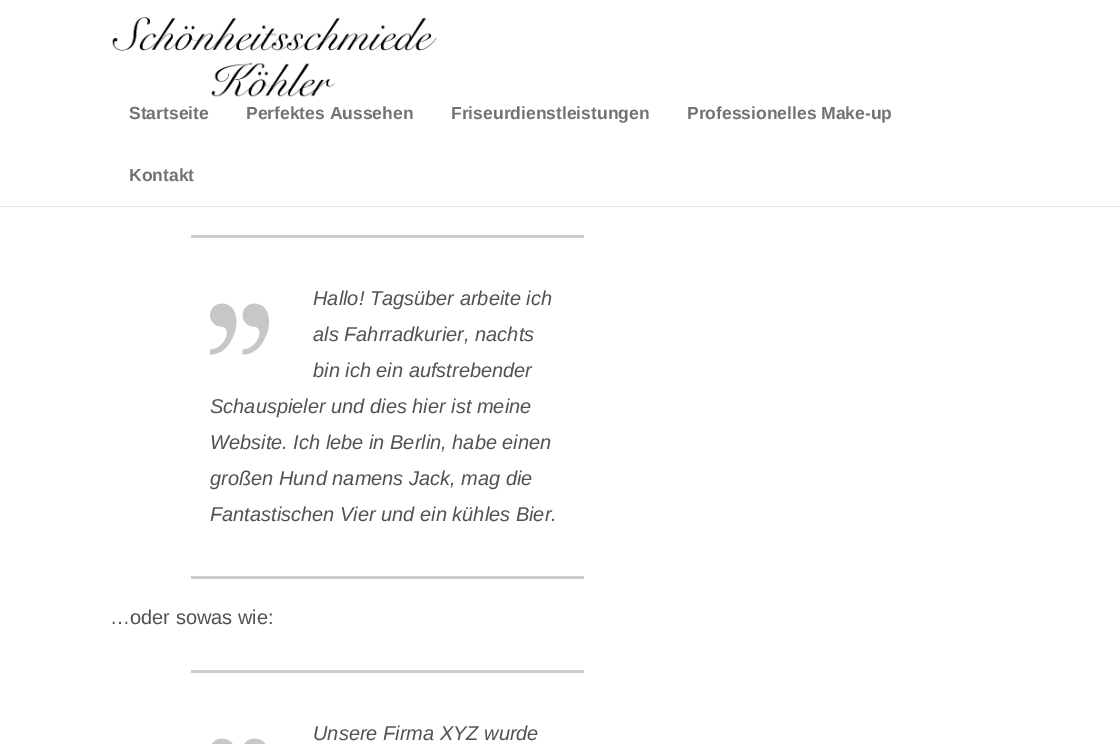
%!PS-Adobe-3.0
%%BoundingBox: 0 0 1120 744
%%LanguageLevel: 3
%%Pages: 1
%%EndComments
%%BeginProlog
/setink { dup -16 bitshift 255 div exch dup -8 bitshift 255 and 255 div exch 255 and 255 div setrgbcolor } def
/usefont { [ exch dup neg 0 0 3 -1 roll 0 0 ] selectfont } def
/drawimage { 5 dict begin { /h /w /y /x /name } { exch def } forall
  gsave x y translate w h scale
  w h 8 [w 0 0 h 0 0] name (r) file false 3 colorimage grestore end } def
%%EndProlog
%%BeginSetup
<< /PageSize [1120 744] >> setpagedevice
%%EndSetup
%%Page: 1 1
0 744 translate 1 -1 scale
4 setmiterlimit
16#FFFFFF setink
0 0 1120 744 rectfill
16#E7E7E7 setink
0 206 1120 1 rectfill
(img1.raw) 112 17 325 80 drawimage
/LiberationSans-Bold 17.5 usefont
16#727271 setink
[
    [(Startseite) 129 119]
    [(Perfektes Aussehen) 246 119]
    [(Friseurdienstleistungen) 451 119]
    [(Professionelles Make-up) 687 119]
    [(Kontakt) 129 181]
] { aload pop moveto show } forall
16#CCCCCC setink
191 235 393 3 rectfill
191 576 393 3 rectfill
/LiberationSans-Italic 20 usefont
16#525252 setink
[
    [(Hallo! Tagsüber arbeite ich) 313 305]
    [(als Fahrradkurier, nachts) 313 341]
    [(bin ich ein aufstrebender) 313 377]
    [(Schauspieler und dies hier ist meine) 210 413]
    [(Website. Ich lebe in Berlin, habe einen) 210 449]
    [(großen Hund namens Jack, mag die) 210 485]
    [(Fantastischen Vier und ein kühles Bier.) 210 521]
] { aload pop moveto show } forall
(img2.raw) 210 303 59 52 drawimage
/LiberationSans-Regular 20 usefont
110 624 moveto (…oder sowas wie:) show
16#CCCCCC setink
191 670 393 3 rectfill
(img3.raw) 212 738 54 6 drawimage
/LiberationSans-Italic 20 usefont
16#525252 setink
313 740 moveto (Unsere Firma XYZ wurde) show
showpage
%%EOF
